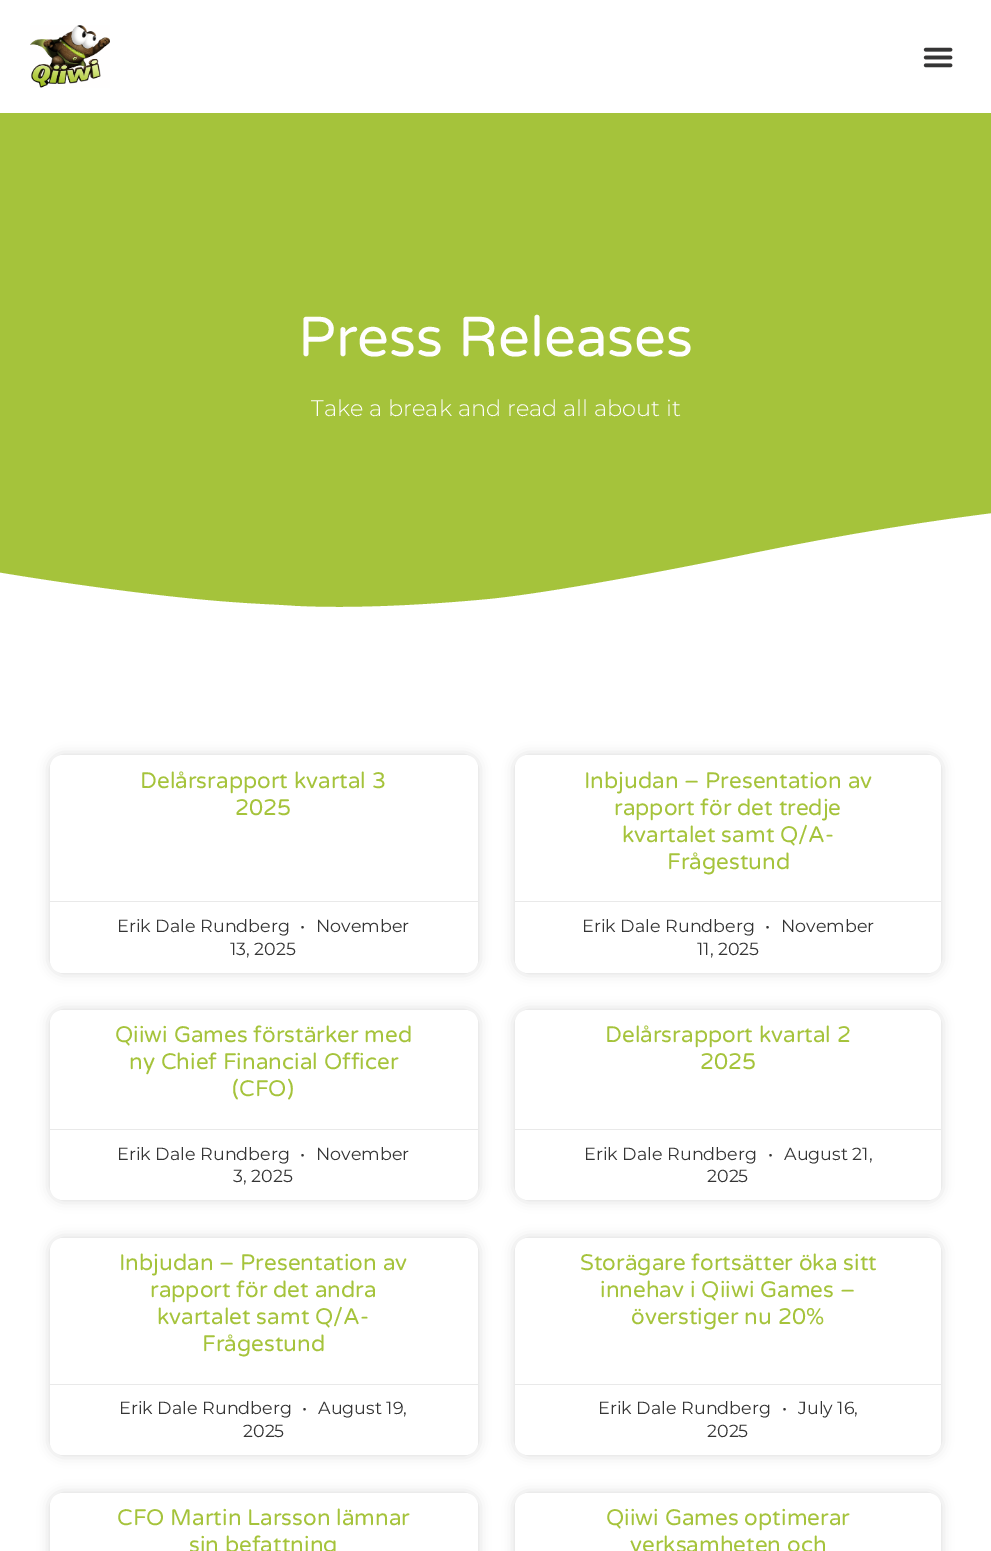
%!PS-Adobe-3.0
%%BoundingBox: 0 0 991 1551
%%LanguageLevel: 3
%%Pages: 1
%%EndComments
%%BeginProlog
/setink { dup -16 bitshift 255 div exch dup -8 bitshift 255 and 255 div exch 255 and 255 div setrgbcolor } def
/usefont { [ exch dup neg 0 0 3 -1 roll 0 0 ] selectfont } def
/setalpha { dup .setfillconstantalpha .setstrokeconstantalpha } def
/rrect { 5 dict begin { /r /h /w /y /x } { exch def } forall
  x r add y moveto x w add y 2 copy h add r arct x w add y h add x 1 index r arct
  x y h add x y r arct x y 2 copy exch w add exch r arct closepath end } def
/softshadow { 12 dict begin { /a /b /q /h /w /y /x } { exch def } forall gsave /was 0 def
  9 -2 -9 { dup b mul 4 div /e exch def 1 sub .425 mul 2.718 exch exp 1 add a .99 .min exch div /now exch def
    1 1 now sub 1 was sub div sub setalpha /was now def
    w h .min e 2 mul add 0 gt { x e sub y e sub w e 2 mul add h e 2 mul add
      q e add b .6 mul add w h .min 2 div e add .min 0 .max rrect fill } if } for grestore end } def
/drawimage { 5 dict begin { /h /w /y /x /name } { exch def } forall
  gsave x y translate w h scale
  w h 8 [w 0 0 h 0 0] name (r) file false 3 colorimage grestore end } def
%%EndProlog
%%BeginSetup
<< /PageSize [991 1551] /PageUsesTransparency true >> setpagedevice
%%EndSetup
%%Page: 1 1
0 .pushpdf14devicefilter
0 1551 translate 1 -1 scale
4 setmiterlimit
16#FFFFFF setink
0 0 991 1551 rectfill
(img1.raw) 30 25 80 63 drawimage
(img2.raw) 923 47 30 21 drawimage
16#A5C33B setink
0 113 991 494 rectfill
/VarelaRound-Regular 56.25 usefont
16#FFFEFE setink
298 356 moveto (Press Releases) show
/Montserrat-Light 22.5 usefont
311 416 moveto (Take a break and read all about it) show
16#FFFFFF setink
295 606 moveto 353 609 428 605 490 599 curveto 550 593 672 570 749 554 curveto 944 514 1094 499 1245 492 curveto 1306 490 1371 488 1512 495 curveto 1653 503 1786 527 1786 527 curveto 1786 614 lineto -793 614 lineto -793 576 lineto -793 576 -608 535 -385 538 curveto -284 539 -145 546 -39 566 curveto 16 576 95 588 166 596 curveto 237 604 268 604 295 606 curveto closepath fill
16#000000 setink
50 755 428 218 13 6 0.15 softshadow
16#FFFFFF setink
50 755 428 218 13 rrect fill
/VarelaRound-Regular 22.5 usefont
16#A5C33B setink
140 788 moveto (Delårsrapport kvartal 3) show
235 815 moveto (2025) show
16#E9E9E9 setink
50 901 428 1 rectfill
/Montserrat-Regular 17.5 usefont
16#353535 setink
[
    [(Erik Dale Rundberg) 117 932]
    [(•) 300 932]
    [(November) 316 932]
    [(13, 2025) 230 955]
] { aload pop moveto show } forall
16#000000 setink
515 755 426 218 13 6 0.15 softshadow
16#FFFFFF setink
515 755 426 218 13 rrect fill
/VarelaRound-Regular 22.5 usefont
16#A5C33B setink
[
    [(Inbjudan – Presentation av) 584 788]
    [(rapport för det tredje) 614 815]
    [(kvartalet samt Q/A-) 622 842]
    [(Frågestund) 667 869]
] { aload pop moveto show } forall
16#E9E9E9 setink
515 901 426 1 rectfill
/Montserrat-Regular 17.5 usefont
16#353535 setink
[
    [(Erik Dale Rundberg) 582 932]
    [(•) 765 932]
    [(November) 781 932]
    [(11, 2025) 697 955]
] { aload pop moveto show } forall
16#000000 setink
50 1010 428 190 13 6 0.15 softshadow
16#FFFFFF setink
50 1010 428 190 13 rrect fill
/VarelaRound-Regular 22.5 usefont
16#A5C33B setink
[
    [(Qiiwi Games förstärker med) 115 1042]
    [(ny Chief Financial Officer) 129 1069]
    [(\(CFO\)) 232 1096]
] { aload pop moveto show } forall
16#E9E9E9 setink
50 1129 428 1 rectfill
/Montserrat-Regular 17.5 usefont
16#353535 setink
[
    [(Erik Dale Rundberg) 117 1160]
    [(•) 300 1160]
    [(November) 316 1160]
    [(3, 2025) 233 1182]
] { aload pop moveto show } forall
16#000000 setink
515 1010 426 190 13 6 0.15 softshadow
16#FFFFFF setink
515 1010 426 190 13 rrect fill
/VarelaRound-Regular 22.5 usefont
16#A5C33B setink
605 1042 moveto (Delårsrapport kvartal 2) show
700 1069 moveto (2025) show
16#E9E9E9 setink
515 1129 426 1 rectfill
/Montserrat-Regular 17.5 usefont
16#353535 setink
[
    [(Erik Dale Rundberg) 584 1160]
    [(•) 768 1160]
    [(August 21,) 784 1160]
    [(2025) 707 1182]
] { aload pop moveto show } forall
16#000000 setink
50 1238 428 217 13 6 0.15 softshadow
16#FFFFFF setink
50 1238 428 217 13 rrect fill
/VarelaRound-Regular 22.5 usefont
16#A5C33B setink
[
    [(Inbjudan – Presentation av) 119 1270]
    [(rapport för det andra) 150 1297]
    [(kvartalet samt Q/A-) 157 1324]
    [(Frågestund) 202 1351]
] { aload pop moveto show } forall
16#E9E9E9 setink
50 1384 428 1 rectfill
/Montserrat-Regular 17.5 usefont
16#353535 setink
[
    [(Erik Dale Rundberg) 119 1414]
    [(•) 302 1414]
    [(August 19,) 318 1414]
    [(2025) 243 1437]
] { aload pop moveto show } forall
16#000000 setink
515 1238 426 217 13 6 0.15 softshadow
16#FFFFFF setink
515 1238 426 217 13 rrect fill
/VarelaRound-Regular 22.5 usefont
16#A5C33B setink
[
    [(Storägare fortsätter öka sitt) 580 1270]
    [(innehav i Qiiwi Games –) 600 1297]
    [(överstiger nu 20%) 631 1324]
] { aload pop moveto show } forall
16#E9E9E9 setink
515 1384 426 1 rectfill
/Montserrat-Regular 17.5 usefont
16#353535 setink
[
    [(Erik Dale Rundberg) 598 1414]
    [(•) 782 1414]
    [(July 16,) 798 1414]
    [(2025) 707 1437]
] { aload pop moveto show } forall
16#000000 setink
50 1493 428 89 13 6 0.15 softshadow
16#FFFFFF setink
50 1493 428 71 13 rrect fill
/VarelaRound-Regular 22.5 usefont
16#A5C33B setink
117 1525 moveto (CFO Martin Larsson lämnar) show
189 1552 moveto (sin befattning) show
16#000000 setink
515 1493 426 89 13 6 0.15 softshadow
16#FFFFFF setink
515 1493 426 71 13 rrect fill
16#A5C33B setink
606 1525 moveto (Qiiwi Games optimerar) show
630 1552 moveto (verksamheten och) show
.poppdf14devicefilter showpage
%%EOF
